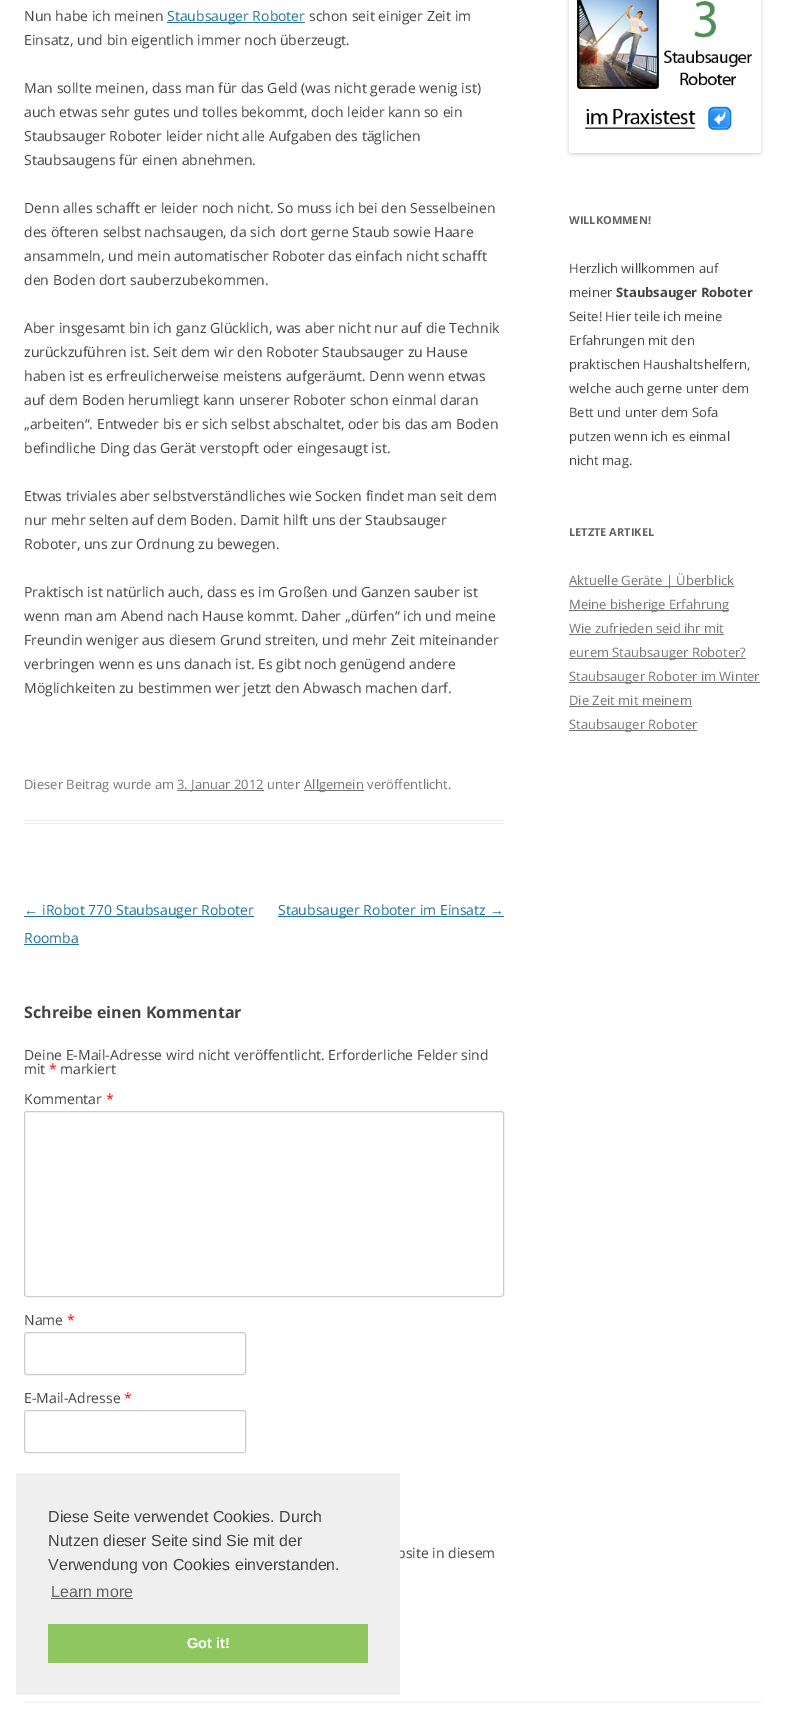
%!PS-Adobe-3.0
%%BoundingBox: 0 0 785 1711
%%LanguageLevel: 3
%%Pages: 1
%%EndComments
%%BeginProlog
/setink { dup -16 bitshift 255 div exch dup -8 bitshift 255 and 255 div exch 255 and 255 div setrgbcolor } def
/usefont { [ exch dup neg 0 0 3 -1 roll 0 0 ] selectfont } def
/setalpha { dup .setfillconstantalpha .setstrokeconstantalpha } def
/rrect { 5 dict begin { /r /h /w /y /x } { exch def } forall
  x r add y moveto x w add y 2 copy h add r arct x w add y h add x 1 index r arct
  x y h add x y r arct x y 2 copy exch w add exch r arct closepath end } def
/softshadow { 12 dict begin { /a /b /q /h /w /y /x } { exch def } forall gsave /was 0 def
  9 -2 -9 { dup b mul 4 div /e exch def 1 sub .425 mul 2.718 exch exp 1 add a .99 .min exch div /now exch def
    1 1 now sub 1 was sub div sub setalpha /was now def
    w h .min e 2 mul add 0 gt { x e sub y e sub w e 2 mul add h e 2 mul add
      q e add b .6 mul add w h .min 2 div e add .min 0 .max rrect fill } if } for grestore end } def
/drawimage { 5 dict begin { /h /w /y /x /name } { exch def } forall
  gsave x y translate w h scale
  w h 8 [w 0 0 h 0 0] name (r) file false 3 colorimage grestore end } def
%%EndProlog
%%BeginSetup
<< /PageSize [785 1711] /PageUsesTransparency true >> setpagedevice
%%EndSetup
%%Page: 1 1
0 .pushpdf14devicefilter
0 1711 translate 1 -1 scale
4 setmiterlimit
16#FFFFFF setink
0 0 785 1711 rectfill
16#EDEDED setink
24 820 480 1 rectfill
24 823 480 1 rectfill
/OpenSans-Regular 14 usefont
16#444444 setink
24 21 moveto (Nun habe ich meinen) show
16#21759B setink
167 22 138 1 rectfill
167 21 moveto (Staubsauger Roboter) show
16#444444 setink
[
    [(schon seit einiger Zeit im) 309 21]
    [(Einsatz, und bin eigentlich immer noch überzeugt.) 24 45]
    [(Man sollte meinen, dass man für das Geld \(was nicht gerade wenig ist\)) 24 93]
    [(auch etwas sehr gutes und tolles bekommt, doch leider kann so ein) 24 117]
    [(Staubsauger Roboter leider nicht alle Aufgaben des täglichen) 24 141]
    [(Staubsaugens für einen abnehmen.) 24 165]
    [(Denn alles schafft er leider noch nicht. So muss ich bei den Sesselbeinen) 24 213]
    [(des öfteren selbst nachsaugen, da sich dort gerne Staub sowie Haare) 24 237]
    [(ansammeln, und mein automatischer Roboter das einfach nicht schafft) 24 261]
    [(den Boden dort sauberzubekommen.) 24 285]
    [(Aber insgesamt bin ich ganz Glücklich, was aber nicht nur auf die Technik) 24 333]
    [(zurückzuführen ist. Seit dem wir den Roboter Staubsauger zu Hause) 24 357]
    [(haben ist es erfreulicherweise meistens aufgeräumt. Denn wenn etwas) 24 381]
    [(auf dem Boden herumliegt kann unserer Roboter schon einmal daran) 24 405]
    [(„arbeiten“. Entweder bis er sich selbst abschaltet, oder bis das am Boden) 24 429]
    [(befindliche Ding das Gerät verstopft oder eingesaugt ist.) 24 453]
    [(Etwas triviales aber selbstverständliches wie Socken findet man seit dem) 24 501]
    [(nur mehr selten auf dem Boden. Damit hilft uns der Staubsauger) 24 525]
    [(Roboter, uns zur Ordnung zu bewegen.) 24 549]
    [(Praktisch ist natürlich auch, dass es im Großen und Ganzen sauber ist) 24 597]
    [(wenn man am Abend nach Hause kommt. Daher „dürfen“ ich und meine) 24 621]
    [(Freundin weniger aus diesem Grund streiten, und mehr Zeit miteinander) 24 645]
    [(verbringen wenn es uns danach ist. Es gibt noch genügend andere) 24 669]
    [(Möglichkeiten zu bestimmen wer jetzt den Abwasch machen darf.) 24 693]
] { aload pop moveto show } forall
/OpenSans-Regular 13 usefont
16#757575 setink
24 789 moveto (Dieser Beitrag wurde am) show
177 790 87 1 rectfill
177 789 moveto (3. Januar 2012 unter) show
304 790 60 1 rectfill
304 789 moveto (Allgemein veröffentlicht.) show
/LiberationSans-Regular 14 usefont
16#21759B setink
24 915 moveto (←) show
24 916 230 1 rectfill
/OpenSans-Regular 14 usefont
42 915 moveto (iRobot 770 Staubsauger Roboter) show
24 943 moveto (Roomba) show
24 944 55 1 rectfill
278 916 226 1 rectfill
278 915 moveto (Staubsauger Roboter im Einsatz) show
/LiberationSans-Regular 14 usefont
490 915 moveto (→) show
/OpenSans-Bold 16 usefont
16#444444 setink
24 1018 moveto (Schreibe einen Kommentar) show
/OpenSans-Regular 14 usefont
24 1060 moveto (Deine E-Mail-Adresse wird nicht veröffentlicht. Erforderliche Felder sind) show
24 1074 moveto (mit) show
16#FF0000 setink
49 1074 moveto (*) show
16#444444 setink
60 1074 moveto (markiert) show
24 1104 moveto (Kommentar) show
16#FF0000 setink
106 1104 moveto (*) show
16#CCCCCC setink
24.5 1111.5 479 185 2.5 rrect stroke
16#444444 setink
24 1325 moveto (Name) show
16#FF0000 setink
67 1325 moveto (*) show
16#CCCCCC setink
24.5 1332.5 221 42 2.5 rrect stroke
16#444444 setink
24 1403 moveto (E-Mail-Adresse) show
16#FF0000 setink
124 1403 moveto (*) show
16#CCCCCC setink
24.5 1410.5 221 42 2.5 rrect stroke
16#444444 setink
397 1558 moveto (bsite in diesem) show
16#000000 setink
569 -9 192 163 3 2 0.2 softshadow
(img1.raw) 569 0 192 153 drawimage
/OpenSans-Bold 11 usefont
16#636363 setink
569 224 moveto (WILLKOMMEN!) show
/OpenSans-Regular 13 usefont
16#444444 setink
569 273 moveto (Herzlich willkommen auf) show
569 297 moveto (meiner) show
/OpenSans-Bold 13 usefont
616 297 moveto (Staubsauger Roboter) show
/OpenSans-Regular 13 usefont
[
    [(Seite! Hier teile ich meine) 569 321]
    [(Erfahrungen mit den) 569 345]
    [(praktischen Haushaltshelfern,) 569 369]
    [(welche auch gerne unter dem) 569 393]
    [(Bett und unter dem Sofa) 569 417]
    [(putzen wenn ich es einmal) 569 441]
    [(nicht mag.) 569 465]
] { aload pop moveto show } forall
/OpenSans-Bold 11 usefont
16#636363 setink
569 536 moveto (LETZTE ARTIKEL) show
16#757575 setink
569 586 165 1 rectfill
/OpenSans-Regular 13 usefont
569 585 moveto (Aktuelle Geräte | Überblick) show
569 610 160 1 rectfill
569 609 moveto (Meine bisherige Erfahrung) show
569 633 moveto (Wie zufrieden seid ihr mit) show
569 634 155 1 rectfill
569 658 177 1 rectfill
569 657 moveto (eurem Staubsauger Roboter?) show
569 682 191 1 rectfill
569 681 moveto (Staubsauger Roboter im Winter) show
569 705 moveto (Die Zeit mit meinem) show
569 706 123 1 rectfill
569 730 128 1 rectfill
569 729 moveto (Staubsauger Roboter) show
16#EDEDED setink
24 1702 737 1 rectfill
16#EFEFEF setink
16 1473 384 222 rectfill
/LiberationSans-Regular 16 usefont
16#444444 setink
[
    [(Diese Seite verwendet Cookies. Durch) 48 1522]
    [(Nutzen dieser Seite sind Sie mit der) 48 1546]
    [(Verwendung von Cookies einverstanden.) 48 1570]
] { aload pop moveto show } forall
16#636363 setink
51 1597 moveto (Learn more) show
51 1598 82 1 rectfill
16#8EC760 setink
48 1624 320 39 rectfill
/LiberationSans-Bold 14.5 usefont
16#FFFFFF setink
187 1648 moveto (Got it!) show
.poppdf14devicefilter showpage
%%EOF
